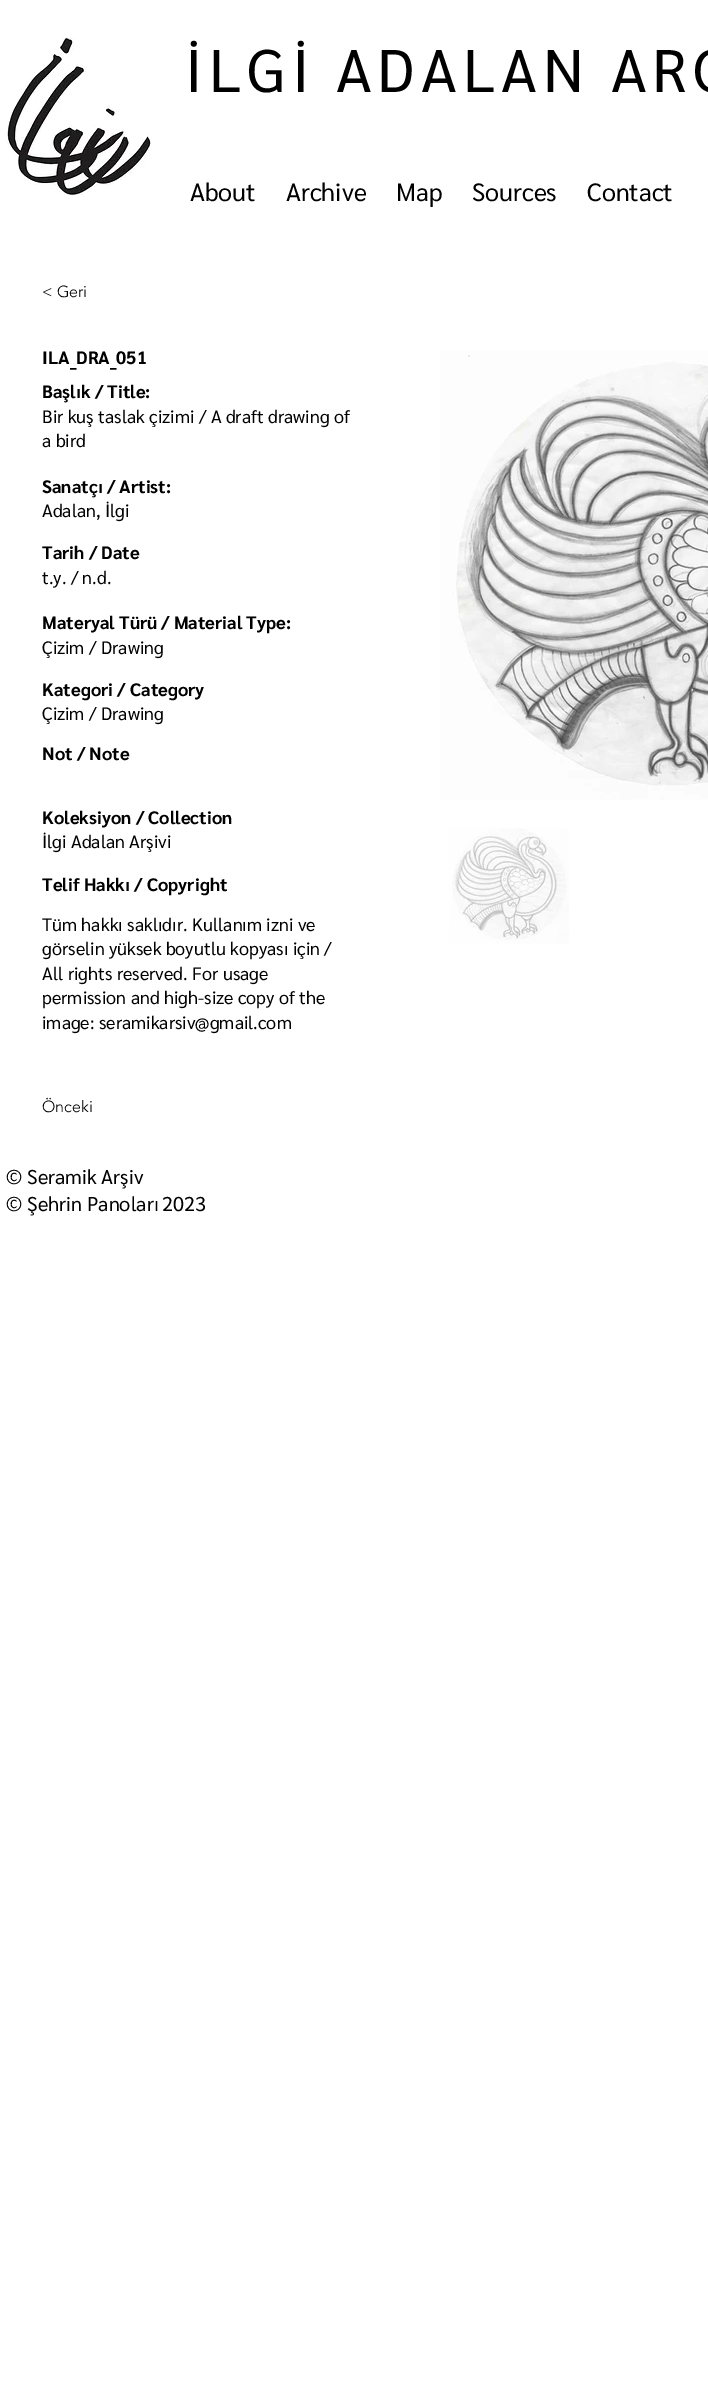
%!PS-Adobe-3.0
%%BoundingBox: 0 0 708 2400
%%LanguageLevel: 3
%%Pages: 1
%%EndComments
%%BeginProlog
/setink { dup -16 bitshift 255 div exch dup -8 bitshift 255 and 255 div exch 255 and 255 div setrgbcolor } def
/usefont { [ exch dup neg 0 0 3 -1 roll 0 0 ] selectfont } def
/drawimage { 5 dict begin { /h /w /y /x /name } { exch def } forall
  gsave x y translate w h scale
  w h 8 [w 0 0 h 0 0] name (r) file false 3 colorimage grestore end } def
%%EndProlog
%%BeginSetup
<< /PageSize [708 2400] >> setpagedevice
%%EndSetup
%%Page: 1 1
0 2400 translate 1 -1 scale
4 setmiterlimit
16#FFFFFF setink
0 0 708 2400 rectfill
(img1.raw) 6 37 145 159 drawimage
/Sarabun-Regular 60 usefont
16#000000 setink
185 92 moveto 6 0 (İLGİ ADALAN ARC) ashow
/Sarabun-Regular 25 usefont
[
    [(About) 190 201]
    [(Archive) 286 201]
    [(Map) 396 201]
    [(Sources) 472 201]
    [(Contact) 587 201]
] { aload pop moveto show } forall
/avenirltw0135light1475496-Light 16 usefont
42 297 moveto (< Geri) show
/Sarabun-Bold 18 usefont
42 364 moveto (ILA_DRA_051) show
(img2.raw) 440 351 268 449 drawimage
(img3.raw) 449 828 120 116 drawimage
42 398 moveto (Başlık / Title:) show
/Sarabun-Regular 18 usefont
42 423 moveto (Bir kuş taslak çizimi / A draft drawing of) show
42 447 moveto (a bird) show
/Sarabun-Bold 18 usefont
42 493 moveto (Sanatçı / Artist:) show
/Sarabun-Regular 18 usefont
42 517 moveto (Adalan, İlgi) show
/Sarabun-Bold 18 usefont
42 559 moveto (Tarih / Date) show
/Sarabun-Regular 18 usefont
42 584 moveto (t.y. / n.d.) show
/Sarabun-Bold 18 usefont
42 629 moveto (Materyal Türü / Material Type:) show
/Sarabun-Regular 18 usefont
42 654 moveto (Çizim / Drawing) show
/Sarabun-Bold 18 usefont
42 696 moveto (Kategori / Category) show
/Sarabun-Regular 18 usefont
42 720 moveto (Çizim / Drawing) show
/Sarabun-Bold 18 usefont
42 760 moveto (Not / Note) show
42 824 moveto (Koleksiyon / Collection) show
/Sarabun-Regular 18 usefont
42 848 moveto (İlgi Adalan Arşivi) show
/Sarabun-Bold 18 usefont
42 891 moveto (Telif Hakkı / Copyright) show
/Sarabun-Regular 18 usefont
[
    [(Tüm hakkı saklıdır. Kullanım izni ve) 42 931]
    [(görselin yüksek boyutlu kopyası için /) 42 955]
    [(All rights reserved. For usage) 42 980]
    [(permission and high-size copy of the) 42 1004]
    [(image: seramikarsiv@gmail.com) 42 1029]
] { aload pop moveto show } forall
/avenirltw0135light1475496-Light 16 usefont
42 1112 moveto (Önceki) show
/Sarabun-Regular 20 usefont
[
    [(© Seramik Arşiv) 6 1184]
    [(© Şehrin Panoları) 6 1211]
    [(2023) 162 1211]
] { aload pop moveto show } forall
showpage
%%EOF
